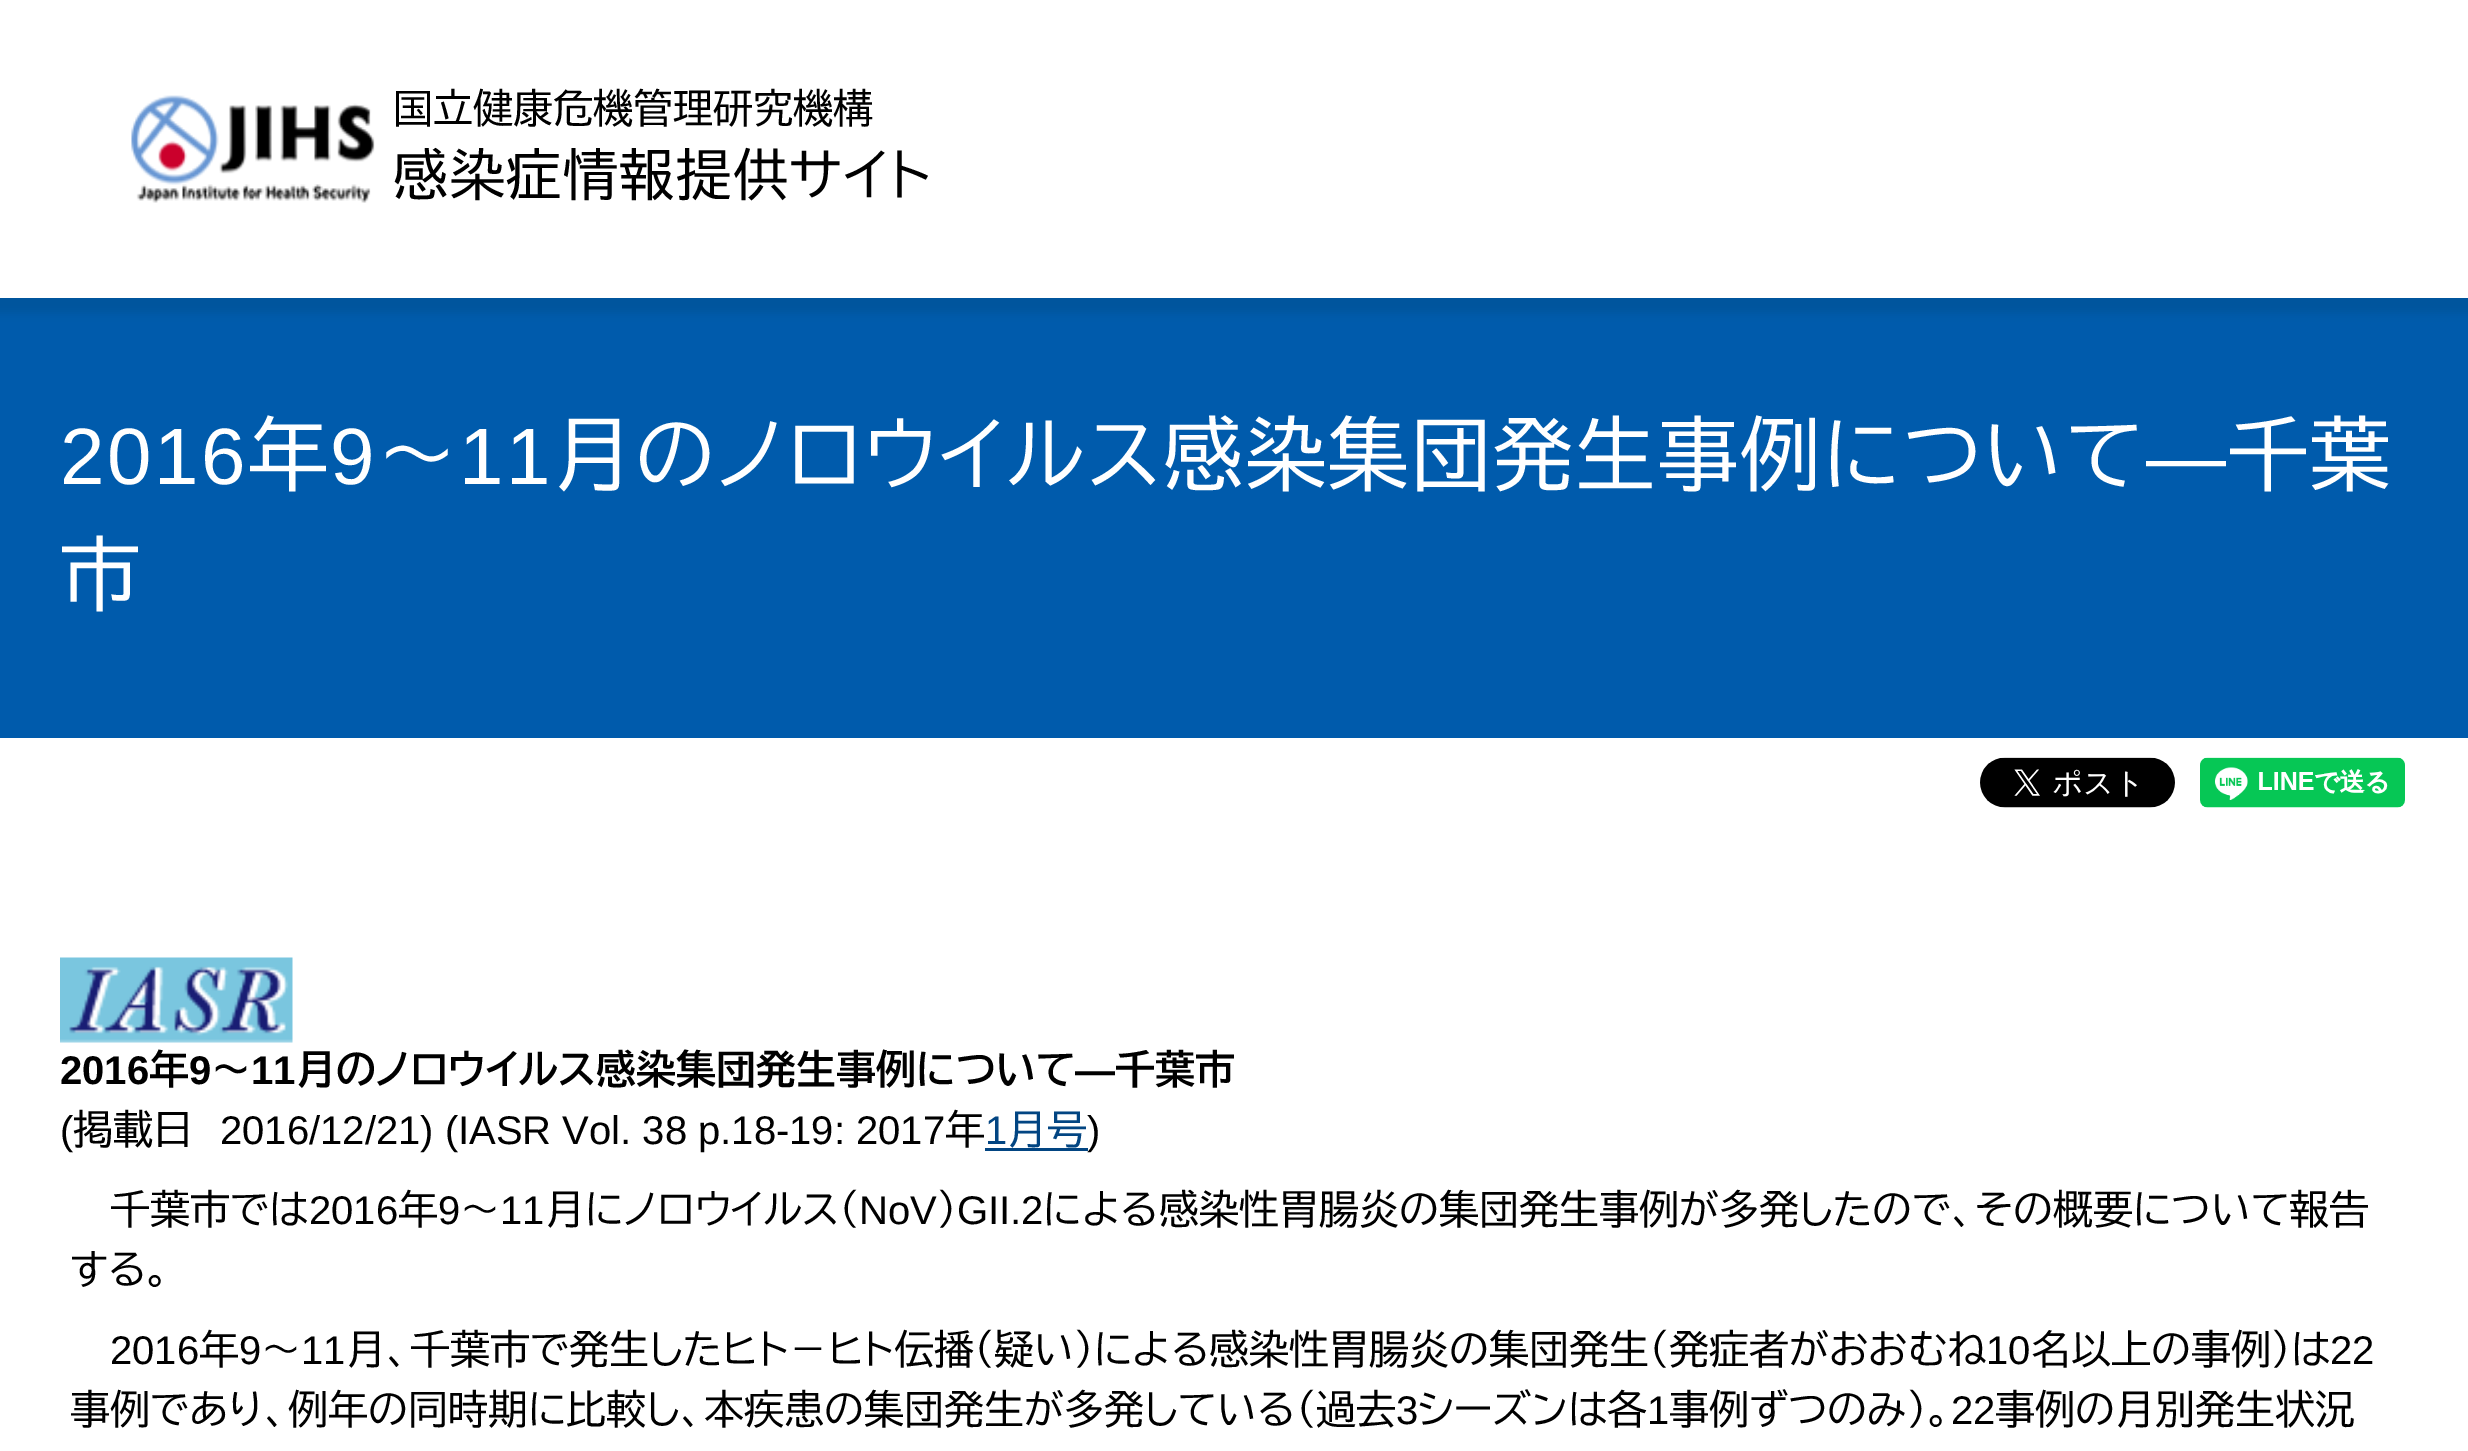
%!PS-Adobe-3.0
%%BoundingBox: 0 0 2468 1451
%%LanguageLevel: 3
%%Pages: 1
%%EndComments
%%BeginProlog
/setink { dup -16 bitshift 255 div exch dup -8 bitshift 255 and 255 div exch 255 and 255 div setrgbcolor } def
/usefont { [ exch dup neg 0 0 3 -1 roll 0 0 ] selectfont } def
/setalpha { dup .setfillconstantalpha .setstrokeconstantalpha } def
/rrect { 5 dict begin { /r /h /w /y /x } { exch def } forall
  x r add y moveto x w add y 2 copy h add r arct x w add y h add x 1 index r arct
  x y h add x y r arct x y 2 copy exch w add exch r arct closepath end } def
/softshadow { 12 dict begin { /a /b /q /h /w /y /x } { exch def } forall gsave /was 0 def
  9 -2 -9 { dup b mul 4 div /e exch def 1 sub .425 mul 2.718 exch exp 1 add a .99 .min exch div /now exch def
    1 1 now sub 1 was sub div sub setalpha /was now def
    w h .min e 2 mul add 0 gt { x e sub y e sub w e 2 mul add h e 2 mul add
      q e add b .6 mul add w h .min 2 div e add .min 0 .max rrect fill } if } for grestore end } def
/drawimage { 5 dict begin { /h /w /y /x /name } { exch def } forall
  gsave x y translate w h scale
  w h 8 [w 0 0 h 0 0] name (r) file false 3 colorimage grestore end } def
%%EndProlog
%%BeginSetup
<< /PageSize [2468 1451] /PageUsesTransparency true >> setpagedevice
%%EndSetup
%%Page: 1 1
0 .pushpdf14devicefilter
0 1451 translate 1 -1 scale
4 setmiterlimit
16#FFFFFF setink
0 0 2468 1451 rectfill
16#005BAC setink
0 298 2468 440 rectfill
16#000000 setink
-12 -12 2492 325 0 4 0.08 softshadow
16#FFFFFF setink
0 0 2468 298 rectfill
(img1.raw) 131 95 244 108 drawimage
/BIZUDPGothic-Regular 40 usefont
16#000000 setink
393 123 moveto (国立健康危機管理研究機構) show
/BIZUDPGothic-Regular 55 usefont
393 195 moveto 1.6 0 (感染症情報提供サイト) ashow
/LiberationSans-Regular 80 usefont
16#FFFFFF setink
60 484 moveto 2.4 0 (2016) ashow
/BIZUDPGothic-Regular 80 usefont
248 484 moveto 2.4 0 (年) ashow
/LiberationSans-Regular 80 usefont
330 484 moveto 2.4 0 (9) ashow
/BIZUDPGothic-Regular 80 usefont
377 484 moveto 2.4 0 (～) ashow
/LiberationSans-Regular 80 usefont
459 484 moveto 2.4 0 (11) ashow
/BIZUDPGothic-Regular 80 usefont
553 484 moveto 2.4 0 (月のノロウイルス感染集団発生事例について) ashow
2228 484 moveto 2.4 0 (千葉) ashow
/LiberationSans-Regular 80 usefont
2146 484 moveto 2.4 0 (―) ashow
/BIZUDPGothic-Regular 80 usefont
60 604 moveto 2.4 0 (市) ashow
(img2.raw) 1980 757 195 51 drawimage
(img3.raw) 2200 757 205 51 drawimage
(img4.raw) 60 957 233 86 drawimage
/LiberationSans-Bold 40 usefont
16#000000 setink
60 1084 moveto (2016) show
/BIZUDPGothic-Bold 40 usefont
149 1084 moveto (年) show
/LiberationSans-Bold 40 usefont
189 1084 moveto (9) show
/BIZUDPGothic-Bold 40 usefont
211 1084 moveto (～) show
/LiberationSans-Bold 40 usefont
251 1084 moveto (11) show
/BIZUDPGothic-Bold 40 usefont
296 1084 moveto (月のノロウイルス感染集団発生事例について) show
/LiberationSans-Bold 40 usefont
1075 1084 moveto (―) show
/BIZUDPGothic-Bold 40 usefont
1115 1084 moveto (千葉市) show
/LiberationSans-Regular 40 usefont
60 1144 moveto (\() show
/BIZUDPGothic-Regular 40 usefont
73 1144 moveto (掲載日) show
/LiberationSans-Regular 40 usefont
220 1144 moveto (2016/12/21\) \(IASR Vol. 38 p.18-19: 2017) show
/BIZUDPGothic-Regular 40 usefont
945 1144 moveto (年) show
/LiberationSans-Regular 40 usefont
16#024582 setink
985 1144 moveto (1) show
985 1148 103 3 rectfill
/BIZUDPGothic-Regular 40 usefont
1007 1144 moveto (月号) show
/LiberationSans-Regular 40 usefont
16#000000 setink
1087 1144 moveto (\)) show
/BIZUDPGothic-Regular 40 usefont
110 1224 moveto (千葉市では) show
/LiberationSans-Regular 40 usefont
309 1224 moveto (2016) show
/BIZUDPGothic-Regular 40 usefont
398 1224 moveto (年) show
/LiberationSans-Regular 40 usefont
438 1224 moveto (9) show
/BIZUDPGothic-Regular 40 usefont
460 1224 moveto (～) show
/LiberationSans-Regular 40 usefont
500 1224 moveto (11) show
/BIZUDPGothic-Regular 40 usefont
545 1224 moveto (月にノロウイルス（) show
/LiberationSans-Regular 40 usefont
859 1224 moveto (NoV) show
/BIZUDPGothic-Regular 40 usefont
937 1224 moveto (）) show
/LiberationSans-Regular 40 usefont
957 1224 moveto (GII.2) show
/BIZUDPGothic-Regular 40 usefont
1043 1224 moveto (による感染性胃腸炎の集団発生事例が多発したので、その概要について報告) show
70 1284 moveto (する。) show
/LiberationSans-Regular 40 usefont
110 1364 moveto (2016) show
/BIZUDPGothic-Regular 40 usefont
199 1364 moveto (年) show
/LiberationSans-Regular 40 usefont
239 1364 moveto (9) show
/BIZUDPGothic-Regular 40 usefont
261 1364 moveto (～) show
/LiberationSans-Regular 40 usefont
301 1364 moveto (11) show
/BIZUDPGothic-Regular 40 usefont
346 1364 moveto (月、千葉市で発生したヒト－ヒト伝播（疑い）による感染性胃腸炎の集団発生（発症者がおおむね) show
/LiberationSans-Regular 40 usefont
1986 1364 moveto (10) show
/BIZUDPGothic-Regular 40 usefont
2031 1364 moveto (名以上の事例）は) show
/LiberationSans-Regular 40 usefont
2330 1364 moveto (22) show
/BIZUDPGothic-Regular 40 usefont
70 1424 moveto (事例であり、例年の同時期に比較し、本疾患の集団発生が多発している（過去) show
/LiberationSans-Regular 40 usefont
1396 1424 moveto (3) show
/BIZUDPGothic-Regular 40 usefont
1418 1424 moveto (シーズンは各) show
/LiberationSans-Regular 40 usefont
1647 1424 moveto (1) show
/BIZUDPGothic-Regular 40 usefont
1669 1424 moveto (事例ずつのみ）。) show
/LiberationSans-Regular 40 usefont
1951 1424 moveto (22) show
/BIZUDPGothic-Regular 40 usefont
1995 1424 moveto (事例の月別発生状況) show
.poppdf14devicefilter showpage
%%EOF
